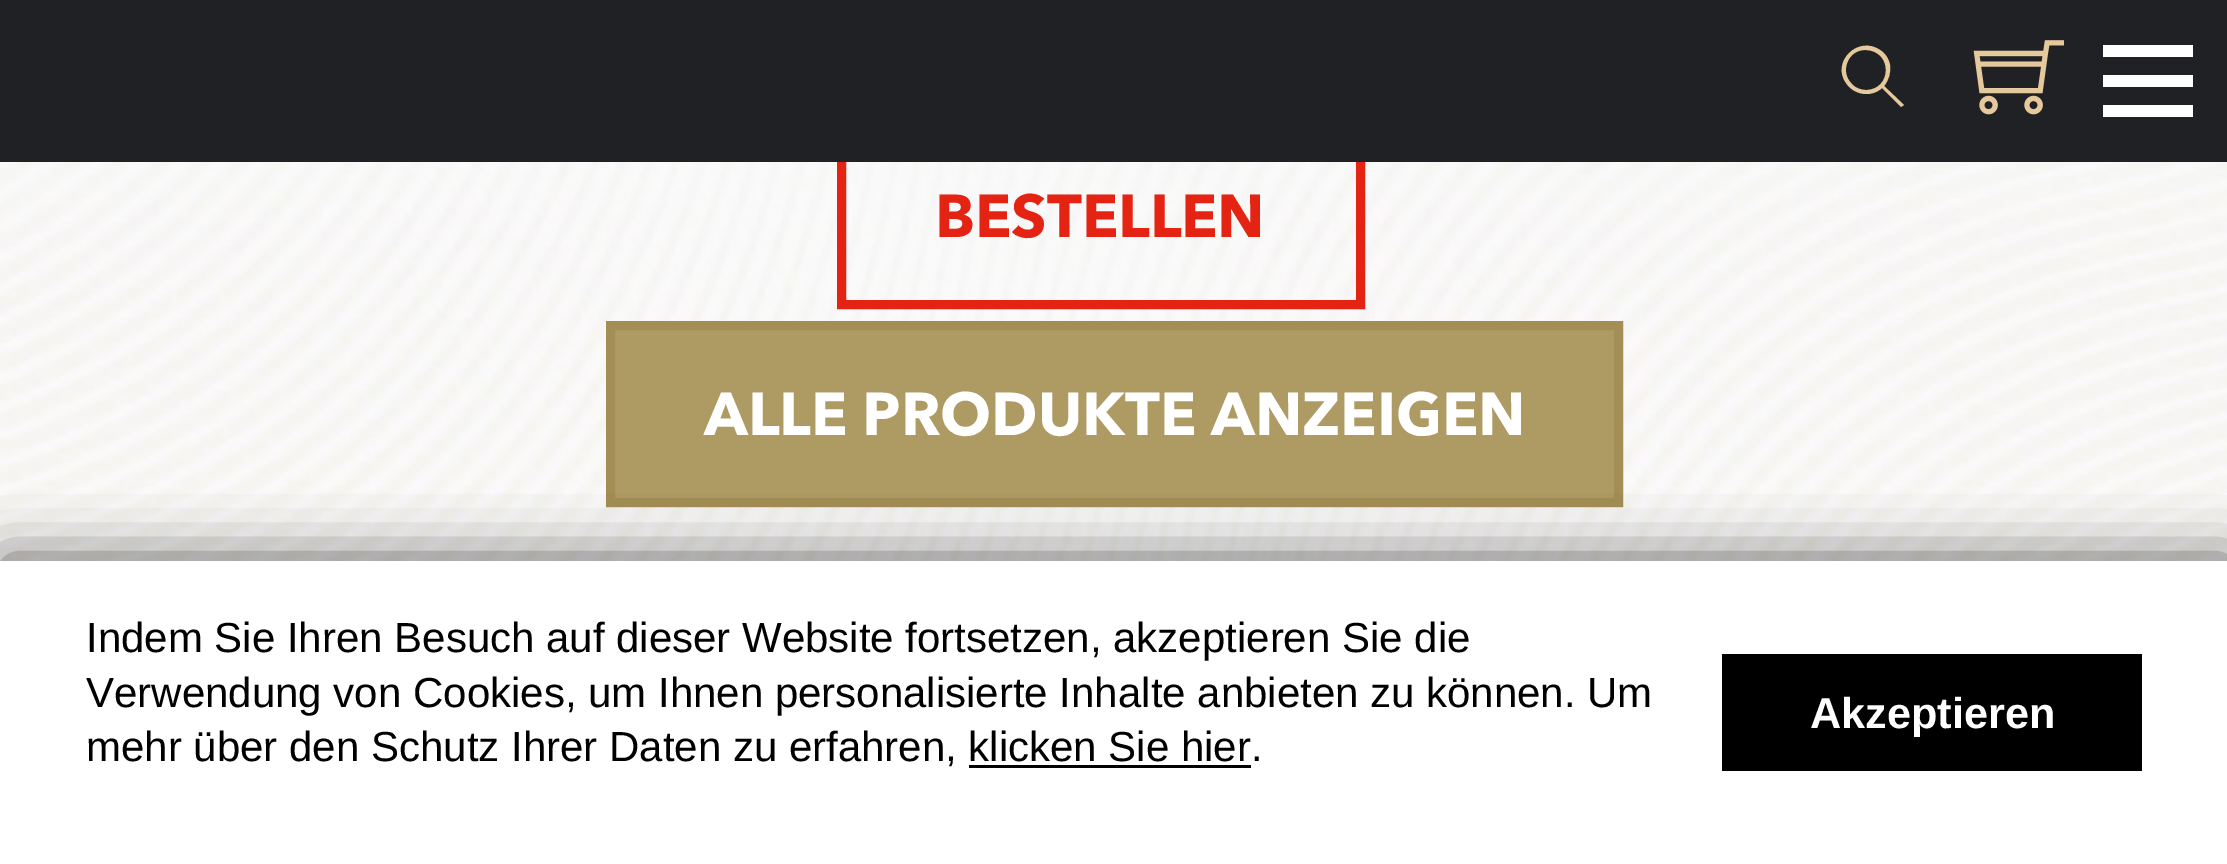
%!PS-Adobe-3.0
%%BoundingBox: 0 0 2227 864
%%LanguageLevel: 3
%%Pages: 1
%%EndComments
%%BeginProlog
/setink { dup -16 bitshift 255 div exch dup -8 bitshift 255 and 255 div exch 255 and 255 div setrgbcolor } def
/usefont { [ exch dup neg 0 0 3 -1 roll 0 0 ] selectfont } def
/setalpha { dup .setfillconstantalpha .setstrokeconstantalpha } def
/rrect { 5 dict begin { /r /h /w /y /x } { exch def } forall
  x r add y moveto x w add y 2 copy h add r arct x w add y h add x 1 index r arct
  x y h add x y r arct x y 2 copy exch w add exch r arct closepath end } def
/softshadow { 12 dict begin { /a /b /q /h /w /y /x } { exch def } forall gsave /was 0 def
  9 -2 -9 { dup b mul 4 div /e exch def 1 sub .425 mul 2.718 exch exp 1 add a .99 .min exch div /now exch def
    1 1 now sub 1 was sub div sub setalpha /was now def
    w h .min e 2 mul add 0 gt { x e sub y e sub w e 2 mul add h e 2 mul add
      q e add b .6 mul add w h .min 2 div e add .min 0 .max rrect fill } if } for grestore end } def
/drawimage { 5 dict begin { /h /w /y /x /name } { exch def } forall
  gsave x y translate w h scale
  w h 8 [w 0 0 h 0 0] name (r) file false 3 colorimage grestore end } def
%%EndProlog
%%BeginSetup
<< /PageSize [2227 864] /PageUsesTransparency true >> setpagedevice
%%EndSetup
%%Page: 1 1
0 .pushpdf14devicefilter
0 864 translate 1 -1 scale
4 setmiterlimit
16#FFFFFF setink
0 0 2227 864 rectfill
(img2.raw) 0 162 2227 399 drawimage
16#E42312 setink
9 setlinewidth
841.5 127.5 519 177 rectstroke
16#202125 setink
0 0 2227 162 rectfill
16#E5C99D setink
1904 105 moveto 1884 86 lineto 1889 80 1891 72 1890 65 curveto 1889 59 1885 53 1880 50 curveto 1858 35 1831 62 1846 83 curveto 1854 95 1871 98 1882 88 curveto 1901 107 lineto closepath 1866 90 moveto 1861 90 1855 88 1852 84 curveto 1839 72 1848 49 1866 50 curveto 1893 51 1892 90 1866 90 curveto closepath fill
(img1.raw) 1973 40 91 75 drawimage
[
    [2103 105 90 12 16#FFFFFF]
    [2103 45 90 12 16#FFFFFF]
    [2103 75 90 12 16#FFFFFF]
] { aload pop setink rectfill } forall
/AvenirNext-Bold 60 usefont
16#E42312 setink
935 237 moveto (BESTELLEN) show
16#AE9A63 setink
610.5 325.5 moveto 1618.5 325.5 lineto 1618.5 502.5 lineto 610.5 502.5 lineto closepath gsave fill grestore
16#A38E55 setink
stroke
16#FFFFFF setink
704 435 moveto (ALLE PRODUKTE ANZEIGEN) show
16#000000 setink
3 558 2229 303 0 28.5 0.59 softshadow
16#FFFFFF setink
0 561 2227 303 rectfill
/LiberationSans-Regular 42 usefont
16#000000 setink
[
    [(Indem Sie Ihren Besuch auf dieser Website fortsetzen, akzeptieren Sie die) 86 652]
    [(Verwendung von Cookies, um Ihnen personalisierte Inhalte anbieten zu können. Um) 86 707]
    [(mehr über den Schutz Ihrer Daten zu erfahren, klicken Sie hier.) 86 761]
] { aload pop moveto show } forall
969 765 282 3 rectfill
1722 654 420 117 rectfill
/LiberationSans-Bold 43.25 usefont
16#FFFFFF setink
1810 728 moveto (Akzeptieren) show
.poppdf14devicefilter showpage
%%EOF
